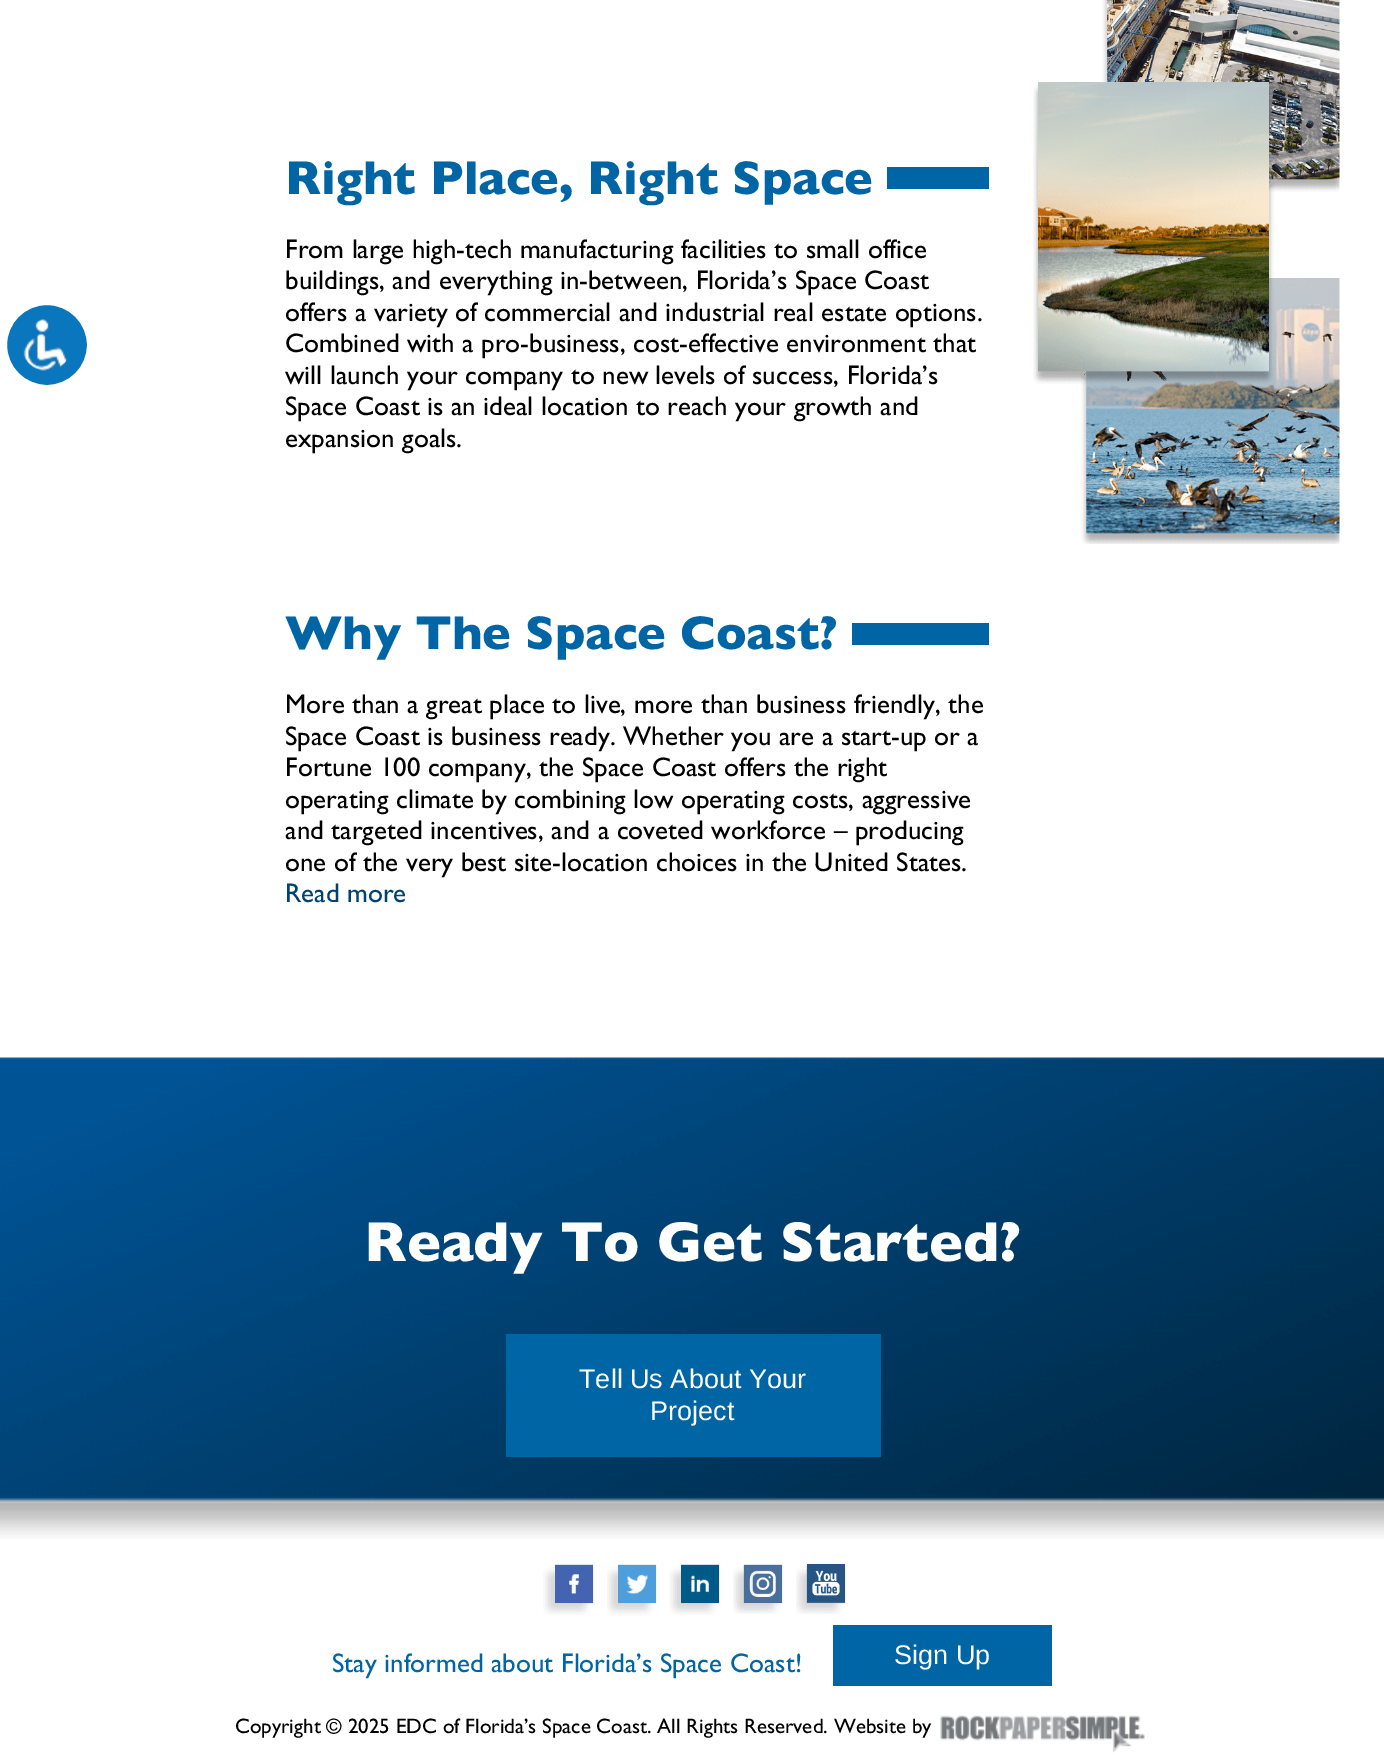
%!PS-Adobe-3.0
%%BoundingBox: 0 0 1384 1755
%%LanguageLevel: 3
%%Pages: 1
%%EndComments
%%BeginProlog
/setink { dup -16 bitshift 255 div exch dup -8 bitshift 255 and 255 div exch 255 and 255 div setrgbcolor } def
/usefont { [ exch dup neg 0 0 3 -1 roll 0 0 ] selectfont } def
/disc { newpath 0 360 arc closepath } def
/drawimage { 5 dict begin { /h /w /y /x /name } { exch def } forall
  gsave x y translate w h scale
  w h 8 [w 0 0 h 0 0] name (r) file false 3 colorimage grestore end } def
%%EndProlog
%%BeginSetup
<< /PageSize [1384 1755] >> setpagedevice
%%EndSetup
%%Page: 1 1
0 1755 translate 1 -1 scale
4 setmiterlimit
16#FFFFFF setink
0 0 1384 1755 rectfill
16#0A76BE setink
47 345 42.5 disc gsave fill grestore
16#FFFFFF setink
5 setlinewidth
stroke
(img1.raw) 23 319 44 52 drawimage
/GillSans-Bold 48 usefont
16#0065A4 setink
285 194 moveto (Right Place, Right Space) show
887 167 102 22 rectfill
/GillSans-Regular 27 usefont
16#000000 setink
[
    [(From large high-tech manufacturing facilities to small office) 285 258]
    [(buildings, and everything in-between, Florida’s Space Coast) 285 289]
    [(offers a variety of commercial and industrial real estate options.) 285 321]
    [(Combined with a pro-business, cost-effective environment that) 285 352]
    [(will launch your company to new levels of success, Florida’s) 285 384]
    [(Space Coast is an ideal location to reach your growth and) 285 415]
    [(expansion goals.) 285 447]
] { aload pop moveto show } forall
/GillSans-Bold 48 usefont
16#0065A4 setink
285 649 moveto (Why The Space Coast?) show
852 623 137 22 rectfill
/GillSans-Regular 27 usefont
16#000000 setink
[
    [(More than a great place to live, more than business friendly, the) 285 713]
    [(Space Coast is business ready. Whether you are a start-up or a) 285 745]
    [(Fortune 100 company, the Space Coast offers the right) 285 776]
    [(operating climate by combining low operating costs, aggressive) 285 808]
    [(and targeted incentives, and a coveted workforce – producing) 285 839]
    [(one of the very best site-location choices in the United States.) 285 871]
] { aload pop moveto show } forall
16#004270 setink
285 902 moveto (Read more) show
(img2.raw) 1033 0 307 544 drawimage
(img3.raw) 0 1057 1384 482 drawimage
/GillSans-Bold 57 usefont
16#FFFFFF setink
364 1261 moveto (Ready To Get Started?) show
16#0065A4 setink
506 1334 375 123 rectfill
/LiberationSans-Regular 27 usefont
16#FFFFFF setink
579 1388 moveto (Tell Us About Your) show
650 1420 moveto (Project) show
(img4.raw) 543 1564 51 51 drawimage
(img5.raw) 607 1564 50 52 drawimage
(img6.raw) 669 1564 51 51 drawimage
(img7.raw) 733 1564 50 50 drawimage
(img8.raw) 796 1564 50 50 drawimage
/GillSans-Regular 27 usefont
16#0065A4 setink
332 1672 moveto (Stay informed about Florida’s Space Coast!) show
833 1625 219 61 rectfill
/LiberationSans-Regular 27 usefont
16#FFFFFF setink
894 1664 moveto (Sign Up) show
/GillSans-Regular 21 usefont
16#000000 setink
235 1733 moveto (Copyright © 2025 EDC of Florida’s Space Coast. All Rights Reserved. Website by) show
(img9.raw) 940 1715 205 38 drawimage
showpage
%%EOF
